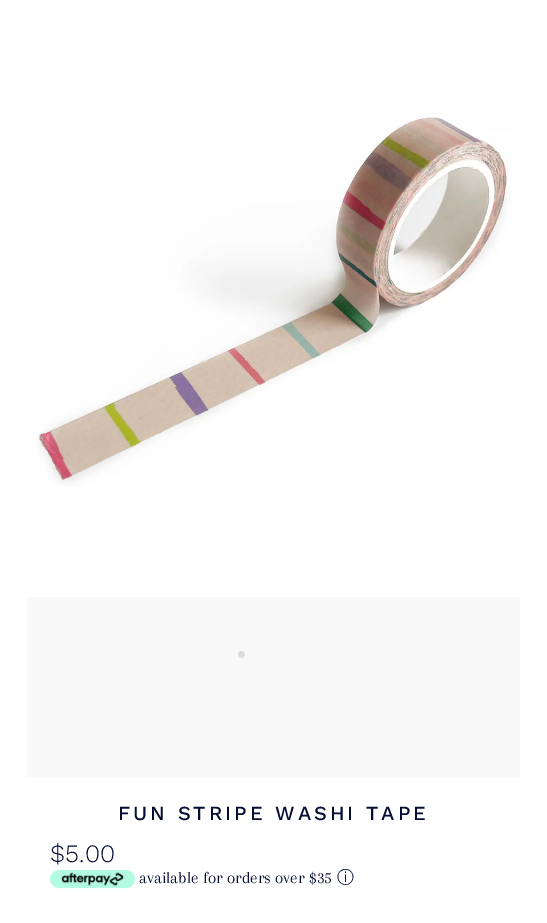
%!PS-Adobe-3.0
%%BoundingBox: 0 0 547 923
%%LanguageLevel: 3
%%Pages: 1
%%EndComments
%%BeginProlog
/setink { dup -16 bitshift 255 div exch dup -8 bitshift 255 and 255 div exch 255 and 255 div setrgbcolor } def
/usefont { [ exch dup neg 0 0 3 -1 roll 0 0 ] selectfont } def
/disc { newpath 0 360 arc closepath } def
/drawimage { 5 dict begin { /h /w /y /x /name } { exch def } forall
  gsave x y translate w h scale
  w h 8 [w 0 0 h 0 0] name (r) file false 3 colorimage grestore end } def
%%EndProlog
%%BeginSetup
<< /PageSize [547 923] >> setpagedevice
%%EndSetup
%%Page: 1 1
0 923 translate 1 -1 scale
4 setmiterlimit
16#FFFFFF setink
0 0 547 923 rectfill
(img1.raw) 21 26 504 460 drawimage
16#F9F9F9 setink
27 597 493 180 rectfill
16#DDDDDD setink
241.5 654.5 3.5 disc fill
/WorkSans-Medium 20 usefont
16#050D33 setink
118 820 moveto 3 0 (FUN STRIPE WASHI TAPE) ashow
/WorkSans-Light 25 usefont
50 862 moveto ($5.00) show
(img2.raw) 50 870 85 19 drawimage
/Arapey-Regular 17 usefont
139 883 moveto (available for orders over $35) show
/WenQuanYiZenHei-Medium 17 usefont
337 883 moveto (ⓘ) show
showpage
%%EOF
